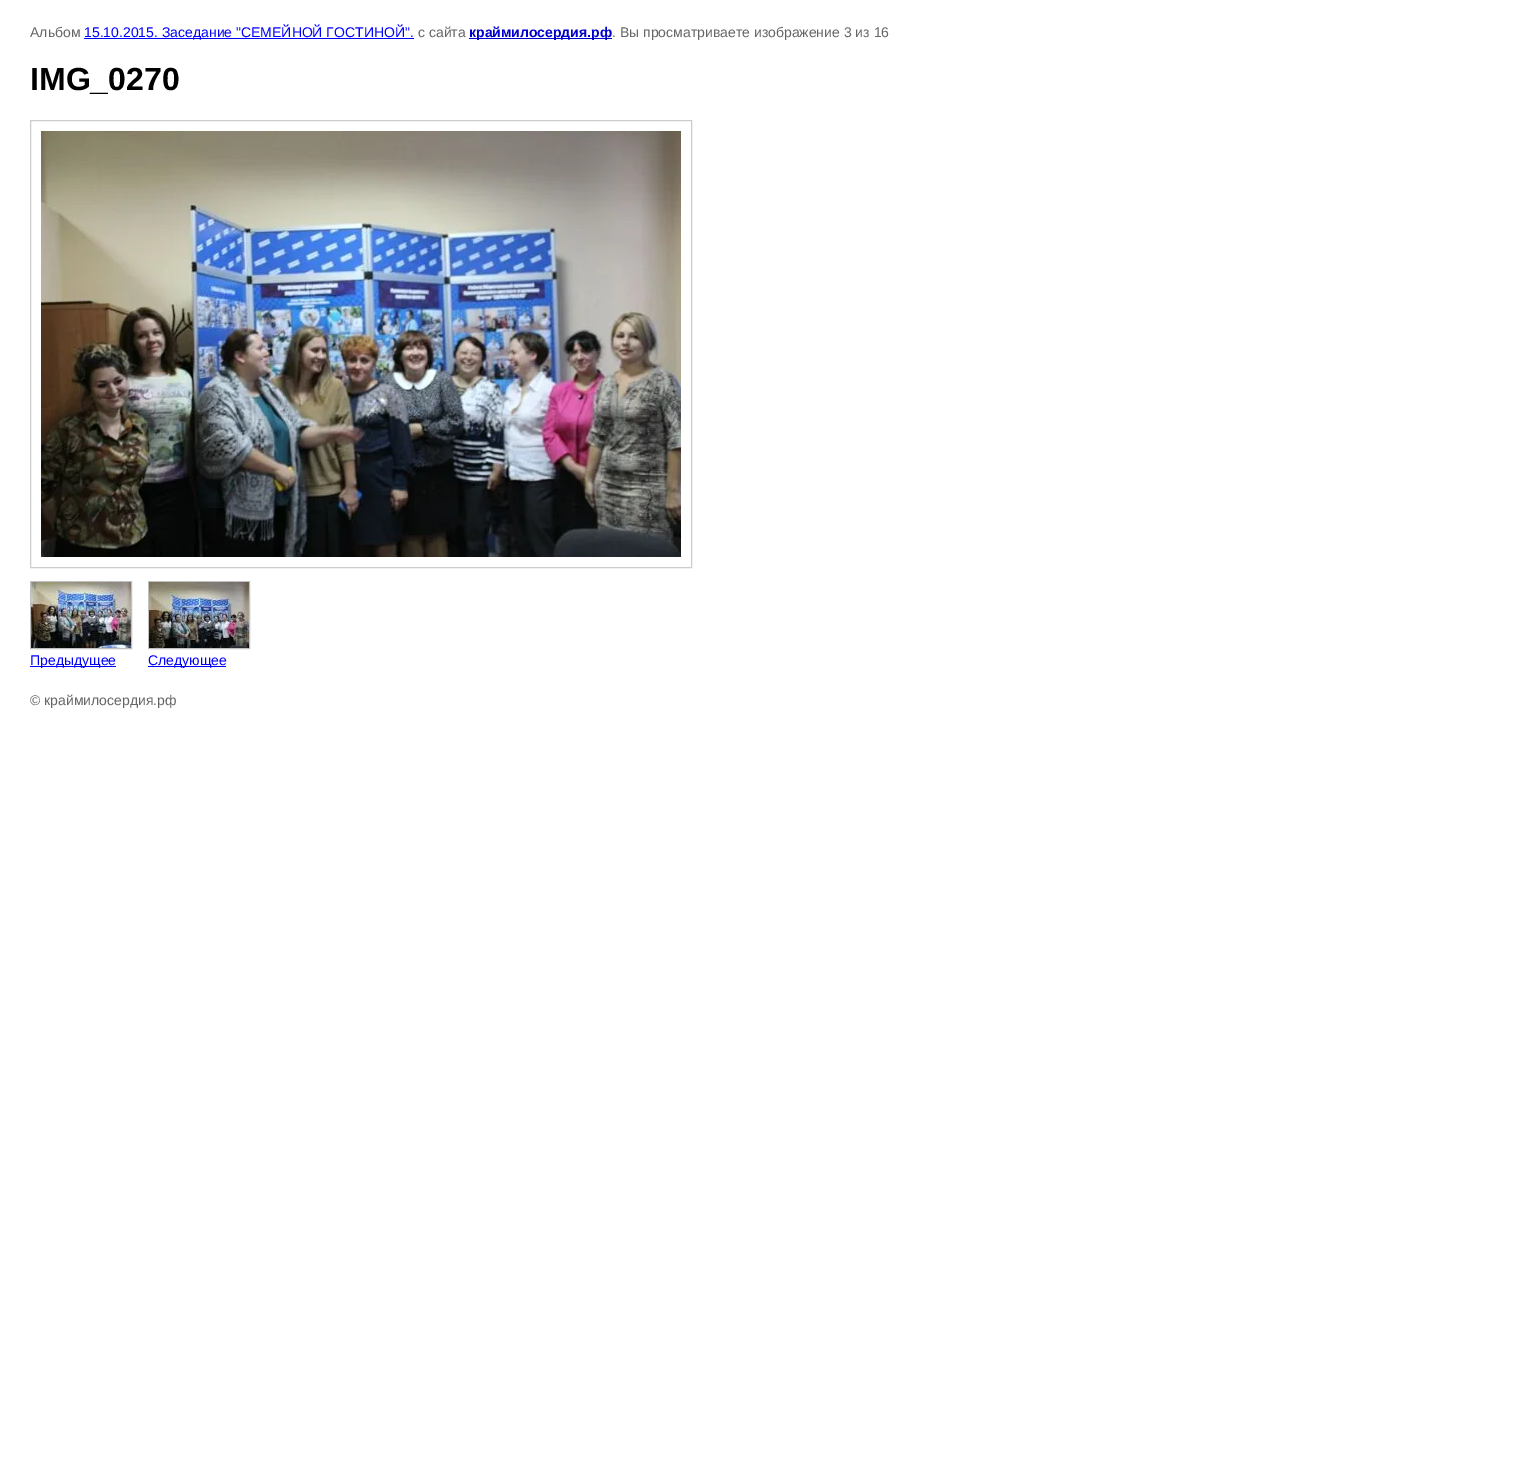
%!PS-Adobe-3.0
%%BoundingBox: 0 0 1538 1484
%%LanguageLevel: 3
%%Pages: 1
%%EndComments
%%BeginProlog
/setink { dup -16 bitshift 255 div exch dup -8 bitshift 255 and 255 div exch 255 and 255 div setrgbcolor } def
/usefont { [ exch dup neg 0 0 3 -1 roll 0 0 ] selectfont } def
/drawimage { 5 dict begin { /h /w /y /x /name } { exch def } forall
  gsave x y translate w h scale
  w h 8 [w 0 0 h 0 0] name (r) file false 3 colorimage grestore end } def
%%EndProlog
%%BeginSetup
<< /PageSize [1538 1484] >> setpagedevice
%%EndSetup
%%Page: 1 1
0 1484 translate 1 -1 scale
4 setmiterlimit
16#FFFFFF setink
0 0 1538 1484 rectfill
/LiberationSans-Regular 14 usefont
16#666666 setink
30 37 moveto (Альбом) show
16#0000FF setink
84 38 330 1 rectfill
84 37 moveto (15.10.2015. Заседание "СЕМЕЙНОЙ ГОСТИНОЙ".) show
16#666666 setink
418 37 moveto (с сайта) show
16#0000CC setink
469 38 143 1 rectfill
/LiberationSans-Bold 14 usefont
469 37 moveto (краймилосердия.рф) show
/LiberationSans-Regular 14 usefont
16#666666 setink
612 37 moveto (. Вы просматриваете изображение 3 из 16) show
/LiberationSans-Bold 32 usefont
16#000000 setink
30 90 moveto (IMG_0270) show
16#CCCCCC setink
30.5 120.5 661 447 rectstroke
(img1.raw) 41 131 640 426 drawimage
16#C0C0C0 setink
30.5 581.5 101 67 rectstroke
(img2.raw) 31 582 100 66 drawimage
16#0000FF setink
30 666 86 1 rectfill
/LiberationSans-Regular 14 usefont
30 665 moveto (Предыдущее) show
16#C0C0C0 setink
148.5 581.5 101 67 rectstroke
(img3.raw) 149 582 100 66 drawimage
16#0000FF setink
148 666 78 1 rectfill
148 665 moveto (Следующее) show
16#666666 setink
30 705 moveto (© краймилосердия.рф) show
showpage
%%EOF
